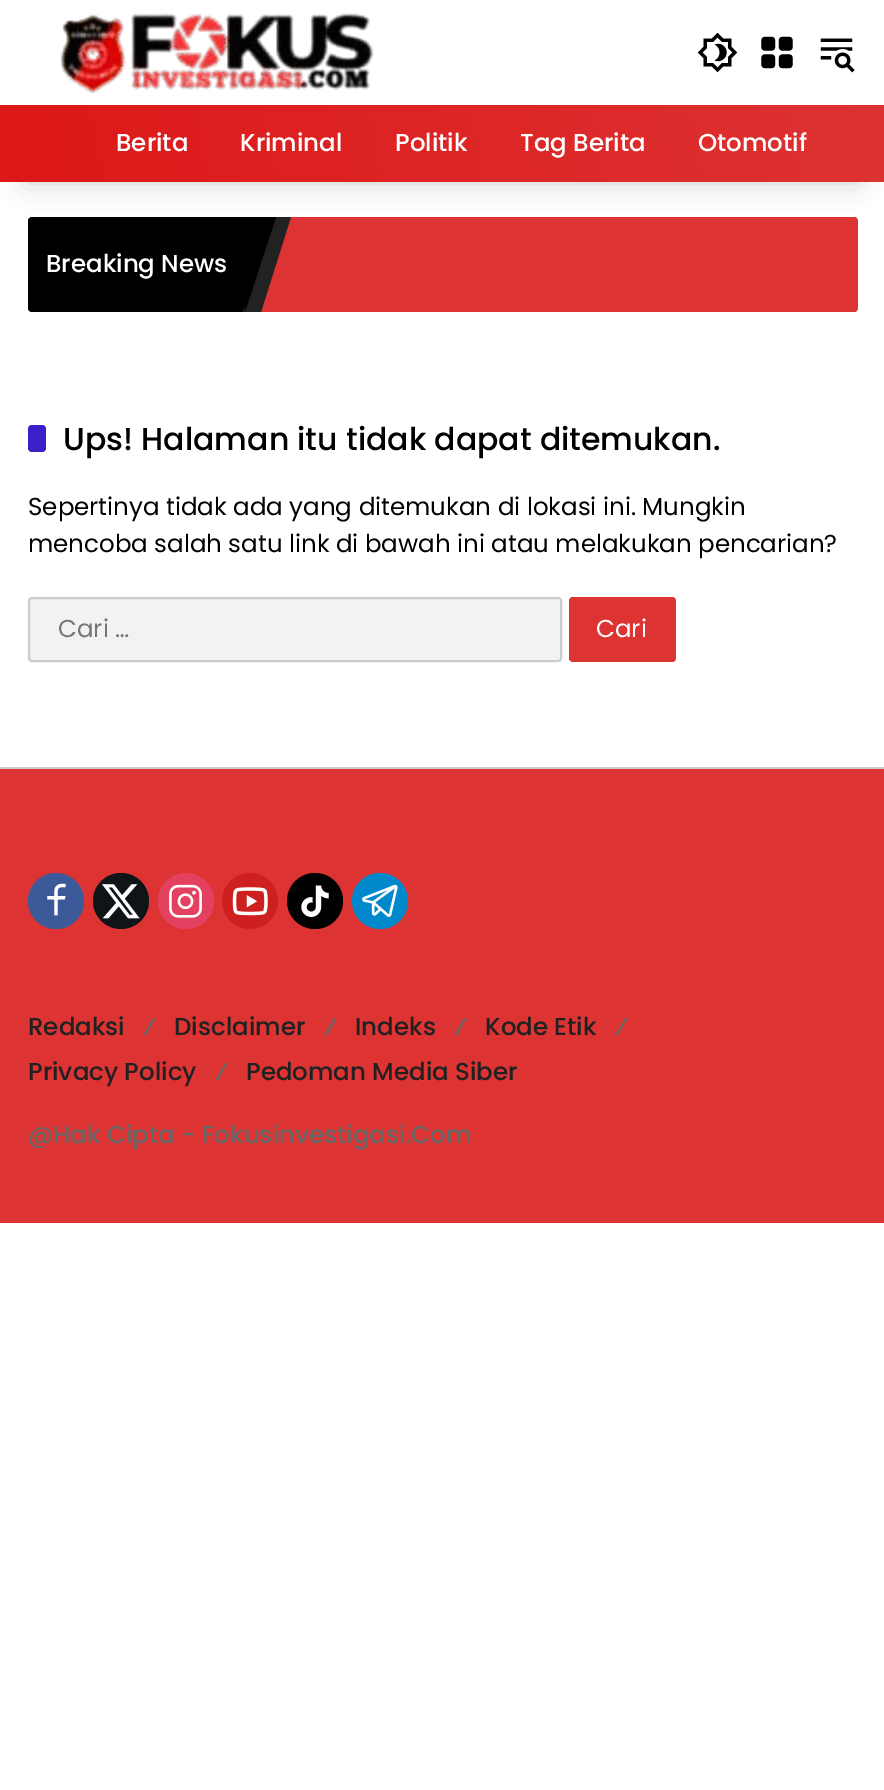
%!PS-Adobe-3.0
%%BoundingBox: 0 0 884 1790
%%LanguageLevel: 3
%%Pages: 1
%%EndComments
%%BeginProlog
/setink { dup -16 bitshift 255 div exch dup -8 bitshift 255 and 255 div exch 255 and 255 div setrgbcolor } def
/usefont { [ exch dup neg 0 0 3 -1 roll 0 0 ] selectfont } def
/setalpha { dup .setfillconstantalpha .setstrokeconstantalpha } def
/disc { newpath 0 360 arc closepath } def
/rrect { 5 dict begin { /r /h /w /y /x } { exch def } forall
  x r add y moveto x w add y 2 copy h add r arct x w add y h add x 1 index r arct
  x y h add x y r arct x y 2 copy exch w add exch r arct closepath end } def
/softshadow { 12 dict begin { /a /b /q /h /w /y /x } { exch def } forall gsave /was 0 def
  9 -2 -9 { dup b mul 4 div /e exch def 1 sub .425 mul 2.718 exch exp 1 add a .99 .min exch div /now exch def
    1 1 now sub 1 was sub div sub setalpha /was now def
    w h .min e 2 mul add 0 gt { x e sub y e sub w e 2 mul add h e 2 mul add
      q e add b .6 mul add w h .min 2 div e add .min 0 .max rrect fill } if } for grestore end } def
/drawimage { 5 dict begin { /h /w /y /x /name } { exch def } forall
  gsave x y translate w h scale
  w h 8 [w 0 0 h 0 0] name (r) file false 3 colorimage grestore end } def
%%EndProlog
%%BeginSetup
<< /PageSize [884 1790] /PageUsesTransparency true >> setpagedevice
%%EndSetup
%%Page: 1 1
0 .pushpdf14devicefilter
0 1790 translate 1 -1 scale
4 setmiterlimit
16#FFFFFF setink
0 0 884 1790 rectfill
(img1.raw) 60 13 314 80 drawimage
(img2.raw) 697 32 41 41 drawimage
(img3.raw) 761 36 32 33 drawimage
(img4.raw) 820 38 35 35 drawimage
16#DD3333 setink
28 217 830 95 4 rrect fill
16#000000 setink
32 217 moveto 245 217 lineto 245 312 lineto 32 312 lineto 30 312 28 310 28 308 curveto 28 221 lineto 28 219 30 217 32 217 curveto closepath fill
16#222222 setink
274 217 moveto 291 217 lineto 261 312 lineto 243 312 lineto closepath fill
16#000000 setink
245 217 moveto 276 217 lineto 245 312 lineto closepath fill
26 158 833 24 0 13 0.2 softshadow
gsave 0 105 moveto 884 105 lineto 884 182 lineto 0 182 lineto closepath clip newpath
<< /ShadingType 2 /ColorSpace /DeviceRGB /Coords [6.8 220 879 67] /Extend [true true] /Function << /FunctionType 2 /Domain [0 1] /C0 [0.867 0.094 0.094] /C1 [0.867 0.2 0.2] /N 1 >> >> shfill grestore
/Poppins-Medium 24.5 usefont
16#FFFFFF setink
[
    [(Berita) 116 151]
    [(Kriminal) 240 151]
    [(Politik) 395 151]
    [(Tag Berita) 520 151]
    [(Otomotif) 698 151]
    [(Breaking News) 46 272]
] { aload pop moveto show } forall
16#3920C9 setink
28 425 18 27 4 rrect fill
/Poppins-Medium 31.5 usefont
16#000000 setink
63 450 moveto (Ups! Halaman itu tidak dapat ditemukan.) show
/Poppins-Regular 24.5 usefont
28 515 moveto (Sepertinya tidak ada yang ditemukan di lokasi ini. Mungkin) show
28 552 moveto (mencoba salah satu link di bawah ini atau melakukan pencarian?) show
16#F2F2F2 setink
29 598 532 63 3 rrect gsave fill grestore
16#CCCCCC setink
2 setlinewidth
stroke
16#757575 setink
58 637 moveto (Cari …) show
16#DD3333 setink
569 597 107 65 4 rrect fill
16#FFFFFF setink
596 637 moveto (Cari) show
16#DD3333 setink
0 769 884 454 rectfill
16#CCCCCC setink
0 767 884 2 rectfill
16#3C5A99 setink
56 901 28 disc fill
(img5.raw) 47 883 19 33 drawimage
16#0F1419 setink
121 901 28 disc fill
(img6.raw) 102 884 38 35 drawimage
16#E4405F setink
186 901 28 disc fill
(img7.raw) 169 884 33 34 drawimage
16#CD201F setink
250 901 28 disc fill
(img8.raw) 232 887 36 29 drawimage
16#010101 setink
315 901 28 disc fill
(img9.raw) 301 885 28 32 drawimage
16#0088CC setink
380 901 28 disc fill
(img10.raw) 362 884 36 33 drawimage
/Poppins-Medium 24.5 usefont
16#212121 setink
28 1035 moveto (Redaksi) show
16#666666 setink
142 1035 moveto (⁄) show
16#212121 setink
174 1035 moveto (Disclaimer) show
16#666666 setink
323 1035 moveto (⁄) show
16#212121 setink
355 1035 moveto (Indeks) show
16#666666 setink
453 1035 moveto (⁄) show
16#212121 setink
485 1035 moveto (Kode Etik) show
16#666666 setink
614 1035 moveto (⁄) show
16#212121 setink
28 1080 moveto (Privacy Policy) show
16#666666 setink
214 1080 moveto (⁄) show
16#212121 setink
246 1080 moveto (Pedoman Media Siber) show
16#666666 setink
28 1143 moveto (@Hak Cipta - Fokusinvestigasi.Com) show
.poppdf14devicefilter showpage
%%EOF
